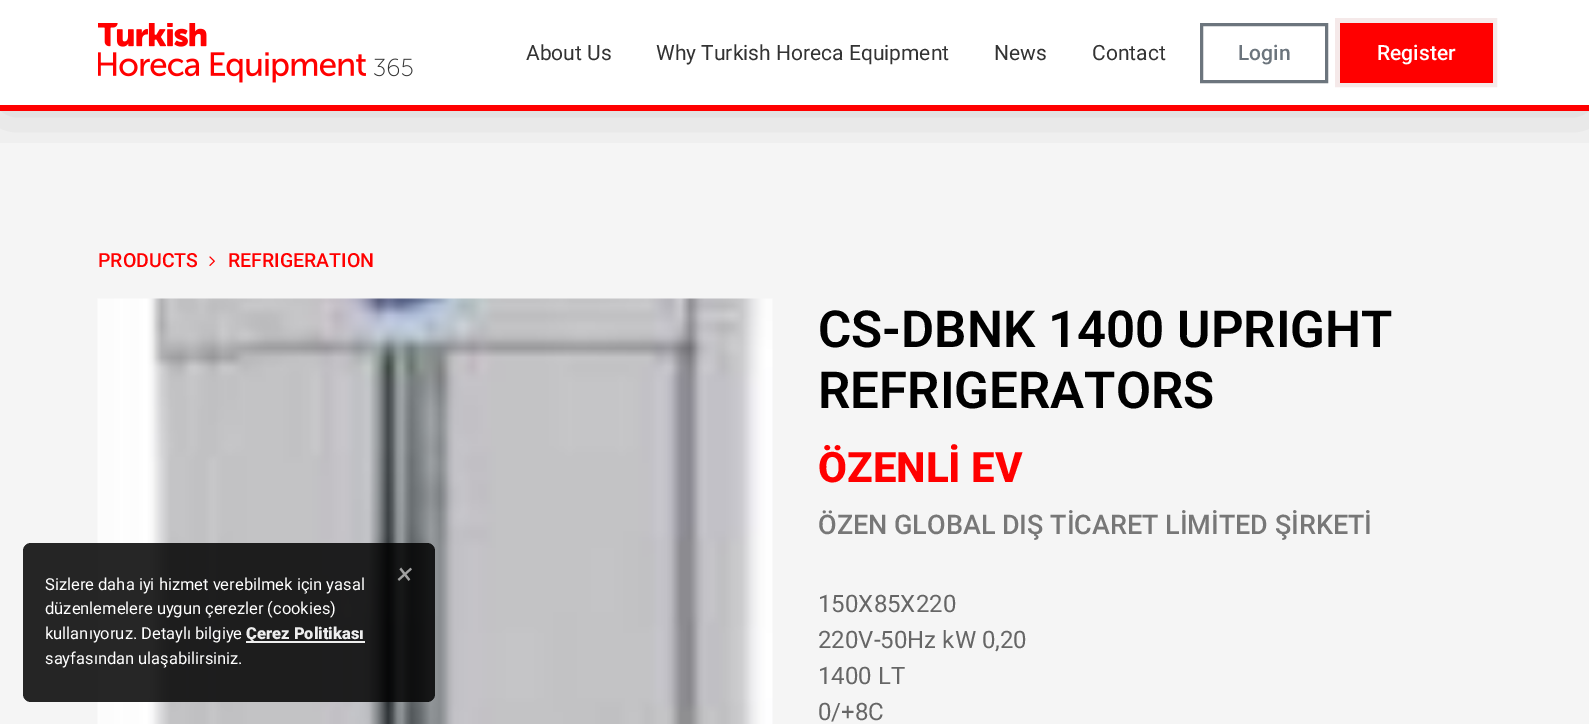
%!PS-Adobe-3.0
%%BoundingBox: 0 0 1589 724
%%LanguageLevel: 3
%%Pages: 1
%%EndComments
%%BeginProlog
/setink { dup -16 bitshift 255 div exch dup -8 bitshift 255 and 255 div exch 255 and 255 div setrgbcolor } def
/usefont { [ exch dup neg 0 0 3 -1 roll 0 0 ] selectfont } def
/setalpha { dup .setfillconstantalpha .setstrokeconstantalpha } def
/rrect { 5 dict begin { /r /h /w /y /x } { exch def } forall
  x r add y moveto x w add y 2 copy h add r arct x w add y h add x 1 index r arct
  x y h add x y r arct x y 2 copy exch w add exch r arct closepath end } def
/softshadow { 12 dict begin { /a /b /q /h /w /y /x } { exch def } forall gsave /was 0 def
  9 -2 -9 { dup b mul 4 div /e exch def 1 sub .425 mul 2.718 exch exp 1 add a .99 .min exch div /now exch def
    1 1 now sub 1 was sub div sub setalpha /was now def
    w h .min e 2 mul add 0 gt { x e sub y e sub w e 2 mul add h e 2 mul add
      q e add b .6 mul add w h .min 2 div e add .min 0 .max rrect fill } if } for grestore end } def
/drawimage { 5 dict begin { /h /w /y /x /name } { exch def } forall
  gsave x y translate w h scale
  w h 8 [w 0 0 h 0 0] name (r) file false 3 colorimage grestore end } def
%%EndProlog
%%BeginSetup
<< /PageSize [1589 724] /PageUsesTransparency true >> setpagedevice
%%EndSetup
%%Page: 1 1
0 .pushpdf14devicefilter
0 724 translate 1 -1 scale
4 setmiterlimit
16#FFFFFF setink
0 0 1589 724 rectfill
16#F5F5F5 setink
0 111 1589 613 rectfill
gsave
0 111 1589 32 rectclip
16#000000 setink
0 5 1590 105 0 30 0.15 softshadow
grestore
(img1.raw) 98 23 315 60 drawimage
/Roboto-Regular 21 usefont
16#333333 setink
[
    [(About Us) 526 60]
    [(Why Turkish Horeca Equipment) 656 60]
    [(News) 994 60]
    [(Contact) 1092 60]
] { aload pop moveto show } forall
16#6C757D setink
3 setlinewidth
1201.5 24.5 125 57 rectstroke
/Roboto-Medium 21 usefont
1238 60 moveto (Login) show
16#F5E9E9 setink
5 setlinewidth
1337.5 20.5 157 64 rectstroke
16#FF0000 setink
1340 23 153 60 rectfill
16#FFFFFF setink
1377 60 moveto (Register) show
16#FF0000 setink
0 105 1589 6 rectfill
/Roboto-Medium 19.5 usefont
98 267 moveto (PRODUCTS) show
(img2.raw) 209 256 6 10 drawimage
228 267 moveto (REFRIGERATION) show
(img3.raw) 97 298 676 426 drawimage
/Roboto-SemiBold 51 usefont
16#000000 setink
818 347 moveto (CS-DBNK 1400 UPRIGHT) show
818 408 moveto (REFRIGERATORS) show
/Roboto-ExtraBold 42 usefont
16#FF0000 setink
818 482 moveto (ÖZENLİ EV) show
/Roboto-Medium 27 usefont
16#777777 setink
818 534 moveto (ÖZEN GLOBAL DIŞ TİCARET LİMİTED ŞİRKETİ) show
/Roboto-Regular 24 usefont
16#666666 setink
[
    [(150X85X220) 818 612]
    [(220V-50Hz kW 0,20) 818 648]
    [(1400 LT) 818 684]
    [(0/+8C) 818 720]
] { aload pop moveto show } forall
0.85 setalpha
16#000000 setink
23 543 412 159 8 rrect fill
/Roboto-Italic 30 usefont
1 setalpha
16#A1A1A1 setink
397 584 moveto (×) show
/Roboto-Regular 16.5 usefont
16#FFFFFF setink
[
    [(Sizlere daha iyi hizmet verebilmek için yasal) 45 590]
    [(düzenlemelere uygun çerezler \(cookies\)) 45 614]
    [(kullanıyoruz. Detaylı bilgiye) 45 639]
] { aload pop moveto show } forall
16#EEEEEE setink
246 641 119 2 rectfill
/Roboto-Black 16.5 usefont
246 639 moveto (Çerez Politikası) show
/Roboto-Regular 16.5 usefont
16#FFFFFF setink
45 664 moveto (sayfasından ulaşabilirsiniz.) show
.poppdf14devicefilter showpage
%%EOF
